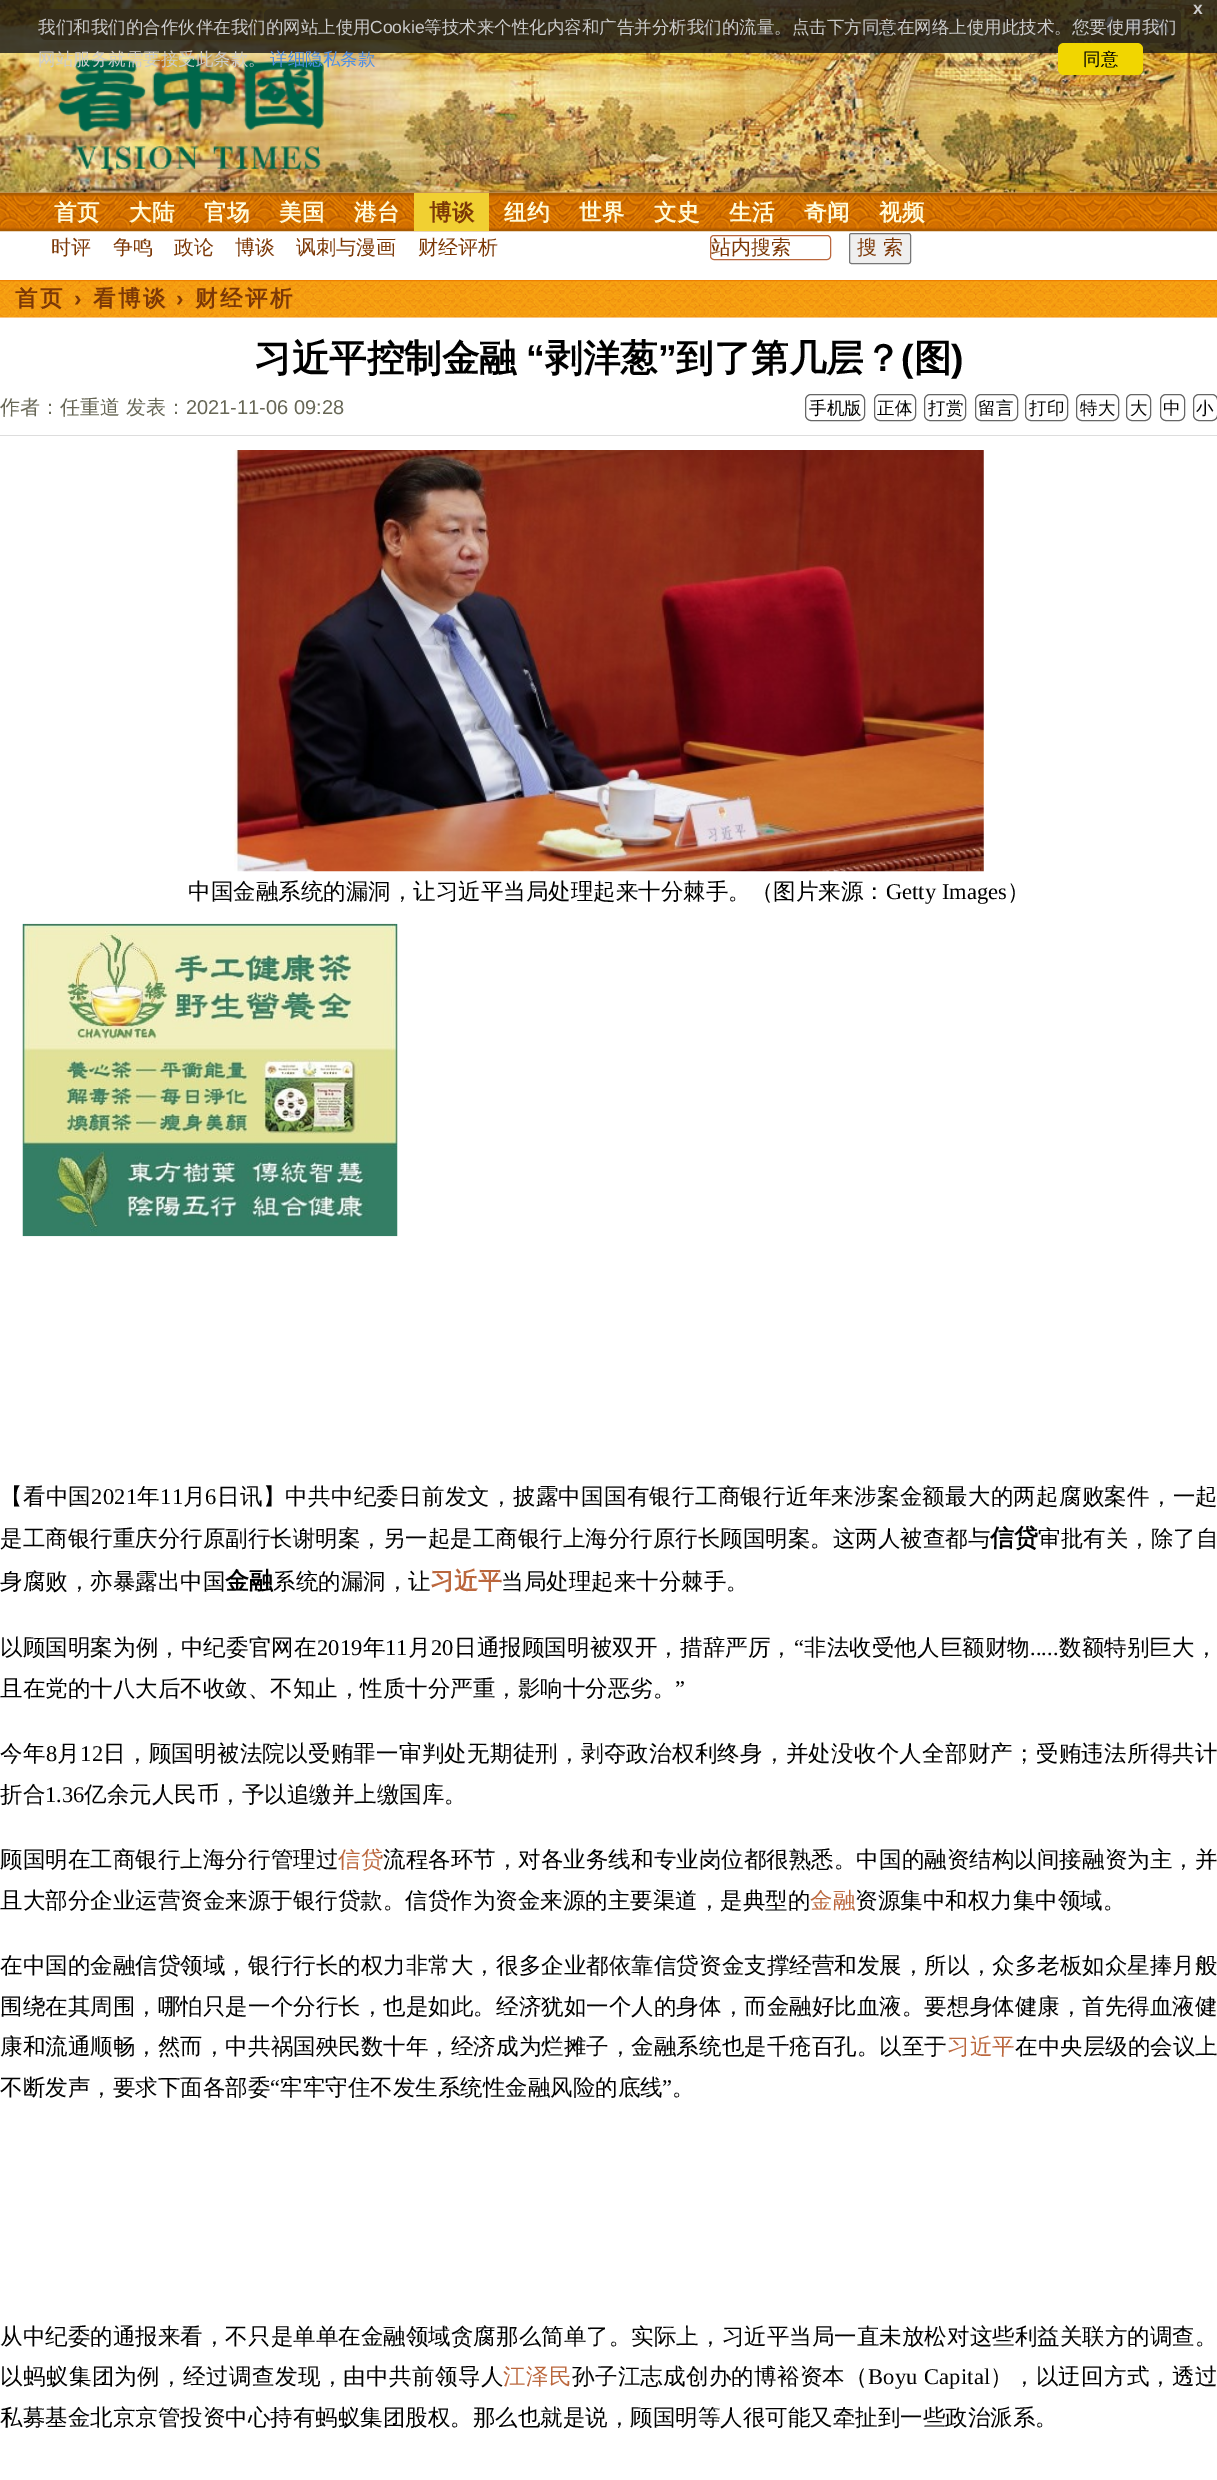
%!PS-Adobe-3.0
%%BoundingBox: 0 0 1217 2480
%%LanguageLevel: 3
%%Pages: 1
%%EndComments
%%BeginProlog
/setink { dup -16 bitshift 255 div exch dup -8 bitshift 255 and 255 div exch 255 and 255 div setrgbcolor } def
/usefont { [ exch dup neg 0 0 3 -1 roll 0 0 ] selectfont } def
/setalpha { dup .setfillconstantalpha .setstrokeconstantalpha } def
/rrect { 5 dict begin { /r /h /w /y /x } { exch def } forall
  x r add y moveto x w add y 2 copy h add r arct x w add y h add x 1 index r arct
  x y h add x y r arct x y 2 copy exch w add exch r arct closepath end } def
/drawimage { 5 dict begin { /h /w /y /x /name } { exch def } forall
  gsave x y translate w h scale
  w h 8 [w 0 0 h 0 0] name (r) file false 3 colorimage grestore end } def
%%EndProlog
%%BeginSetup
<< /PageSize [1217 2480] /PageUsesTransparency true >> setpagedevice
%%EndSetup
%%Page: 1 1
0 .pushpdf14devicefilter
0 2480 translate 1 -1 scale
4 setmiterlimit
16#FFFFFF setink
0 0 1217 2480 rectfill
(img1.raw) 0 0 1217 193 drawimage
16#B28B33 setink
40 9 116 31 6 rrect fill
156 9 95 31 6 rrect fill
264 9 341 31 6 rrect fill
1091 9 90 34 6 rrect fill
(img2.raw) 1104 16 10 17 drawimage
(img3.raw) 1127 18 15 14 drawimage
(img4.raw) 1155 18 14 15 drawimage
0.8 setalpha
16#141414 setink
0 0 1217 53 rectfill
/LiberationSans-Bold 17.5 usefont
1 setalpha
16#CCCCCC setink
1193 14 moveto (x) show
/WenQuanYiZenHei-Medium 17.5 usefont
38 33 moveto (我们和我们的合作伙伴在我们的网站上使用) show
/LiberationSans-Regular 17.5 usefont
370 33 moveto (Cookie) show
/WenQuanYiZenHei-Medium 17.5 usefont
424 33 moveto (等技术来个性化内容和广告并分析我们的流量。点击下方同意在网络上使用此技术。您要使用我们) show
(img5.raw) 58 58 266 111 drawimage
38 65 moveto (网站服务就需要接受此条款。) show
16#4B8EE7 setink
270 65 moveto (详细隐私条款) show
16#F1D600 setink
1058 43 85 32 6 rrect fill
16#000000 setink
1083 65 moveto (同意) show
(img6.raw) 0 192 1217 40 drawimage
/WenQuanYiZenHei-Bold 22.5 usefont
16#FFFBD9 setink
204 220 moveto (官场) show
279 220 moveto (美国) show
16#F1D032 setink
414 193 75 38 rectfill
16#7C3806 setink
429 220 moveto (博谈) show
/WenQuanYiZenHei-Medium 20 usefont
[
    [(时评) 51 254]
    [(争鸣) 113 254]
    [(政论) 174 254]
    [(博谈) 235 254]
    [(讽刺与漫画) 296 254]
    [(财经评析) 418 254]
] { aload pop moveto show } forall
16#BB673D setink
710.5 235.5 120 24 3.5 rrect stroke
16#7C3806 setink
711 254 moveto (站内搜索) show
16#EFEFEF setink
849.5 233.5 61 30 2 rrect gsave fill grestore
16#767676 setink
stroke
16#7C3806 setink
857 254 moveto (搜 索) show
/WenQuanYiZenHei-Bold 22.5 usefont
16#FFFBD9 setink
[
    [(首页) 54 220]
    [(大陆) 129 220]
    [(港台) 354 220]
    [(纽约) 504 220]
    [(世界) 579 220]
    [(文史) 654 220]
    [(生活) 729 220]
    [(奇闻) 804 220]
    [(视频) 879 220]
] { aload pop moveto show } forall
(img7.raw) 0 280 1217 38 drawimage
16#7C3806 setink
15 306 moveto 2.5 0 (首页) ashow
/LiberationSans-Bold 22.5 usefont
74 306 moveto 2.5 0 (›) ashow
/WenQuanYiZenHei-Bold 22.5 usefont
93 306 moveto 2.5 0 (看博谈) ashow
/LiberationSans-Bold 22.5 usefont
176 306 moveto 2.5 0 (›) ashow
/WenQuanYiZenHei-Bold 22.5 usefont
195 306 moveto 2.5 0 (财经评析) ashow
/WenQuanYiZenHei-Bold 37.5 usefont
16#000000 setink
254 371 moveto (习近平控制金融) show
/LiberationSans-Bold 37.5 usefont
526 371 moveto (“) show
/WenQuanYiZenHei-Bold 37.5 usefont
545 371 moveto (剥洋葱) show
/LiberationSans-Bold 37.5 usefont
658 371 moveto (”) show
/WenQuanYiZenHei-Bold 37.5 usefont
676 371 moveto (到了第几层？) show
/LiberationSans-Bold 37.5 usefont
901 371 moveto (\() show
/WenQuanYiZenHei-Bold 37.5 usefont
914 371 moveto (图) show
/LiberationSans-Bold 37.5 usefont
951 371 moveto (\)) show
/WenQuanYiZenHei-Medium 20 usefont
16#666655 setink
0 414 moveto (作者：任重道) show
126 414 moveto (发表：) show
/LiberationSans-Regular 20 usefont
186 414 moveto (2021-11-06 09:28) show
16#666666 setink
805.5 394.5 59 26 5.5 rrect stroke
/WenQuanYiZenHei-Medium 17.5 usefont
16#000000 setink
809 414 moveto (手机版) show
16#666666 setink
874.5 394.5 41 26 5.5 rrect stroke
16#000000 setink
877 414 moveto (正体) show
16#666666 setink
924.5 394.5 41 26 5.5 rrect stroke
16#000000 setink
928 414 moveto (打赏) show
16#666666 setink
975.5 394.5 42 26 5.5 rrect stroke
16#000000 setink
978 414 moveto (留言) show
16#666666 setink
1025.5 394.5 42 26 5.5 rrect stroke
16#000000 setink
1029 414 moveto (打印) show
16#666666 setink
1076.5 394.5 42 26 5.5 rrect stroke
16#000000 setink
1080 414 moveto (特大) show
16#666666 setink
1126.5 394.5 24 26 5.5 rrect stroke
16#000000 setink
1130 414 moveto (大) show
16#666666 setink
1160.5 394.5 24 26 5.5 rrect stroke
16#000000 setink
1163 414 moveto (中) show
16#666666 setink
1193.5 394.5 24 26 5.5 rrect stroke
16#000000 setink
1196 414 moveto (小) show
16#DDDDDD setink
0 435 1217 1 rectfill
(img8.raw) 234 450 750 422 drawimage
/WenQuanYiZenHei-Medium 22.5 usefont
16#000000 setink
188 899 moveto (中国金融系统的漏洞，让习近平当局处理起来十分棘手。（图片来源：) show
/LiberationSerif-Regular 22.5 usefont
886 899 moveto (Getty Images) show
/WenQuanYiZenHei-Medium 22.5 usefont
1007 899 moveto (）) show
(img9.raw) 22 923 376 314 drawimage
0 1504 moveto 0.25 0 (【看中国) ashow
/LiberationSerif-Regular 22.5 usefont
91 1504 moveto 0.25 0 (2021) ashow
/WenQuanYiZenHei-Medium 22.5 usefont
137 1504 moveto 0.25 0 (年) ashow
/LiberationSerif-Regular 22.5 usefont
160 1504 moveto 0.25 0 (11) ashow
/WenQuanYiZenHei-Medium 22.5 usefont
183 1504 moveto 0.25 0 (月) ashow
/LiberationSerif-Regular 22.5 usefont
205 1504 moveto 0.25 0 (6) ashow
/WenQuanYiZenHei-Medium 22.5 usefont
217 1504 moveto 0.25 0 (日讯】中共中纪委日前发文，披露中国国有银行工商银行近年来涉案金额最大的两起腐败案件，一起) ashow
0 1546 moveto (是工商银行重庆分行原副行长谢明案，另一起是工商银行上海分行原行长顾国明案。这两人被查都与) show
/WenQuanYiZenHei-Bold 24 usefont
990 1546 moveto (信贷) show
/WenQuanYiZenHei-Medium 22.5 usefont
1038 1546 moveto (审批有关，除了自) show
0 1589 moveto (身腐败，亦暴露出中国) show
/WenQuanYiZenHei-Bold 24 usefont
225 1589 moveto (金融) show
/WenQuanYiZenHei-Medium 22.5 usefont
273 1589 moveto (系统的漏洞，让) show
/WenQuanYiZenHei-Bold 24 usefont
16#BB673D setink
430 1589 moveto (习近平) show
/WenQuanYiZenHei-Medium 22.5 usefont
16#000000 setink
501 1589 moveto (当局处理起来十分棘手。) show
0 1655 moveto 0.1 0 (以顾国明案为例，中纪委官网在) ashow
/LiberationSerif-Regular 22.5 usefont
317 1655 moveto 0.1 0 (2019) ashow
/WenQuanYiZenHei-Medium 22.5 usefont
363 1655 moveto 0.1 0 (年) ashow
/LiberationSerif-Regular 22.5 usefont
385 1655 moveto 0.1 0 (11) ashow
/WenQuanYiZenHei-Medium 22.5 usefont
408 1655 moveto 0.1 0 (月) ashow
/LiberationSerif-Regular 22.5 usefont
431 1655 moveto 0.1 0 (20) ashow
/WenQuanYiZenHei-Medium 22.5 usefont
454 1655 moveto 0.1 0 (日通报顾国明被双开，措辞严厉，) ashow
/LiberationSerif-Regular 22.5 usefont
794 1655 moveto 0.1 0 (“) ashow
/WenQuanYiZenHei-Medium 22.5 usefont
804 1655 moveto 0.1 0 (非法收受他人巨额财物) ashow
1059 1655 moveto 0.1 0 (数额特别巨大，) ashow
/LiberationSerif-Regular 22.5 usefont
1030 1655 moveto 0.1 0 (.....) ashow
/WenQuanYiZenHei-Medium 22.5 usefont
0 1696 moveto (且在党的十八大后不收敛、不知止，性质十分严重，影响十分恶劣。) show
/LiberationSerif-Regular 22.5 usefont
675 1696 moveto (”) show
/WenQuanYiZenHei-Medium 22.5 usefont
0 1761 moveto 0.25 0 (今年) ashow
/LiberationSerif-Regular 22.5 usefont
46 1761 moveto 0.25 0 (8) ashow
/WenQuanYiZenHei-Medium 22.5 usefont
57 1761 moveto 0.25 0 (月) ashow
/LiberationSerif-Regular 22.5 usefont
80 1761 moveto 0.25 0 (12) ashow
/WenQuanYiZenHei-Medium 22.5 usefont
103 1761 moveto 0.25 0 (日，顾国明被法院以受贿罪一审判处无期徒刑，剥夺政治权利终身，并处没收个人全部财产；受贿违法所得共计) ashow
0 1802 moveto (折合) show
/LiberationSerif-Regular 22.5 usefont
45 1802 moveto (1.36) show
/WenQuanYiZenHei-Medium 22.5 usefont
84 1802 moveto (亿余元人民币，予以追缴并上缴国库。) show
0 1867 moveto 0.05 0 (顾国明在工商银行上海分行管理过) ashow
16#BB673D setink
338 1867 moveto (信贷) show
16#000000 setink
383 1867 moveto 0.05 0 (流程各环节，对各业务线和专业岗位都很熟悉。中国的融资结构以间接融资为主，并) ashow
0 1908 moveto (且大部分企业运营资金来源于银行贷款。信贷作为资金来源的主要渠道，是典型的) show
16#BB673D setink
810 1908 moveto (金融) show
16#000000 setink
855 1908 moveto (资源集中和权力集中领域。) show
0 1973 moveto 0.05 0 (在中国的金融信贷领域，银行行长的权力非常大，很多企业都依靠信贷资金支撑经营和发展，所以，众多老板如众星捧月般) ashow
0 2014 moveto 0.05 0 (围绕在其周围，哪怕只是一个分行长，也是如此。经济犹如一个人的身体，而金融好比血液。要想身体健康，首先得血液健) ashow
0 2054 moveto 0.05 0 (康和流通顺畅，然而，中共祸国殃民数十年，经济成为烂摊子，金融系统也是千疮百孔。以至于) ashow
16#BB673D setink
947 2054 moveto (习近平) show
16#000000 setink
1015 2054 moveto 0.05 0 (在中央层级的会议上) ashow
0 2095 moveto (不断发声，要求下面各部委) show
/LiberationSerif-Regular 22.5 usefont
270 2095 moveto (“) show
/WenQuanYiZenHei-Medium 22.5 usefont
280 2095 moveto (牢牢守住不发生系统性金融风险的底线) show
/LiberationSerif-Regular 22.5 usefont
662 2095 moveto (”) show
/WenQuanYiZenHei-Medium 22.5 usefont
672 2095 moveto (。) show
0 2344 moveto 0.05 0 (从中纪委的通报来看，不只是单单在金融领域贪腐那么简单了。实际上，习近平当局一直未放松对这些利益关联方的调查。) ashow
0 2384 moveto 0.4 0 (以蚂蚁集团为例，经过调查发现，由中共前领导人) ashow
16#BB673D setink
503 2384 moveto 0.5 0 (江泽民) ashow
16#000000 setink
572 2384 moveto 0.25 0 (孙子江志成创办的博裕资本（) ashow
/LiberationSerif-Regular 22.5 usefont
868 2384 moveto 0.25 0 (Boyu Capital) ashow
/WenQuanYiZenHei-Medium 22.5 usefont
990 2384 moveto 0.25 0 (），以迂回方式，透过) ashow
0 2425 moveto (私募基金北京京管投资中心持有蚂蚁集团股权。那么也就是说，顾国明等人很可能又牵扯到一些政治派系。) show
.poppdf14devicefilter showpage
%%EOF
